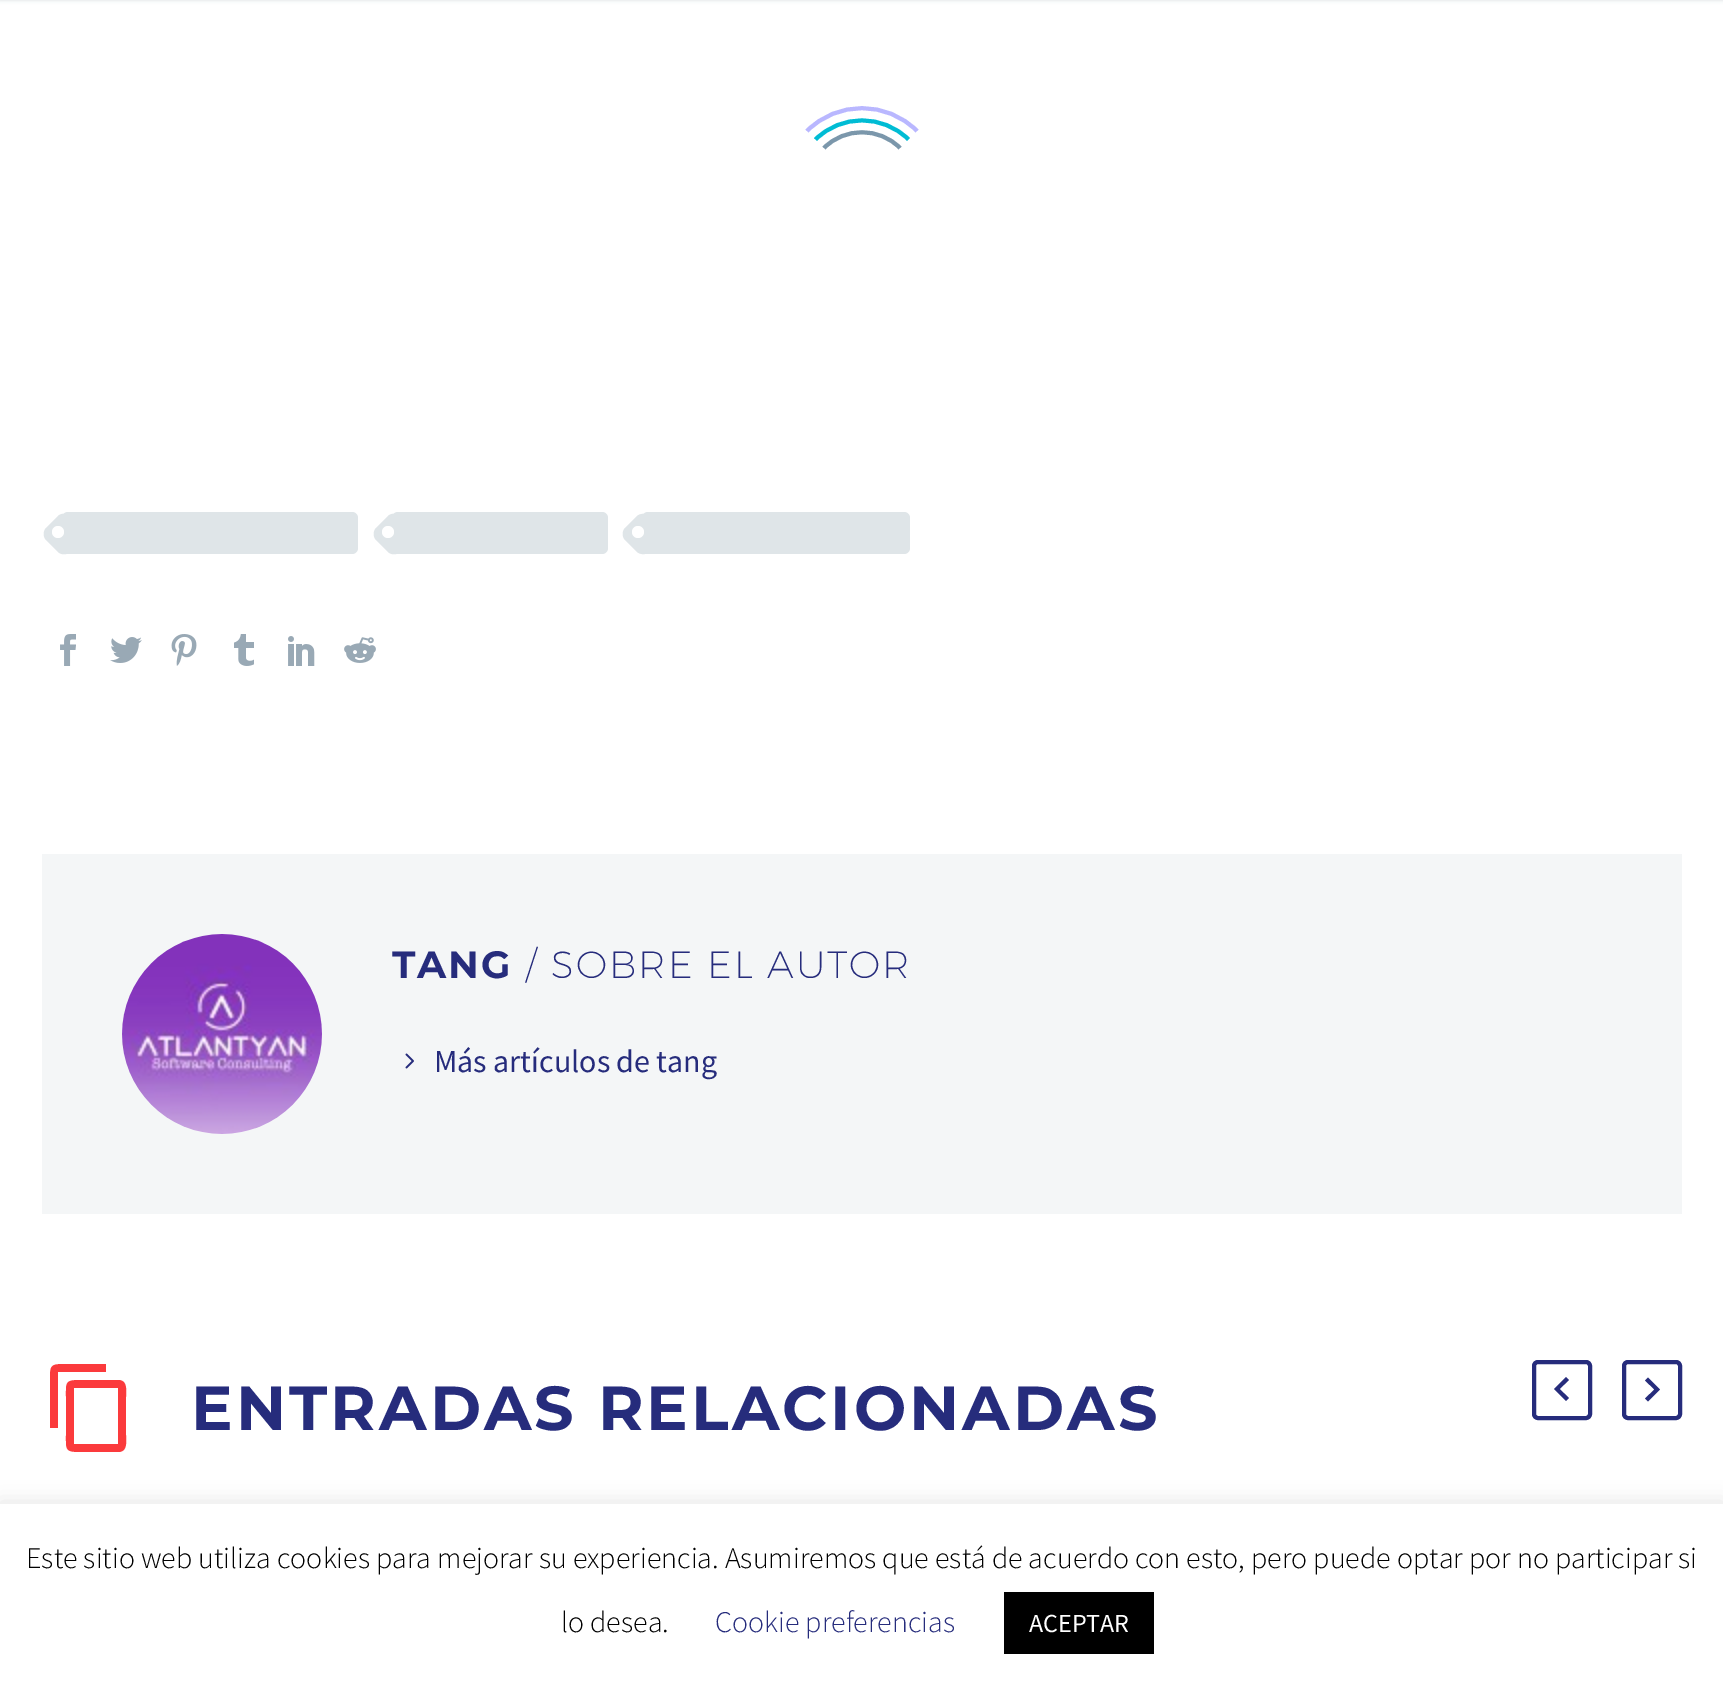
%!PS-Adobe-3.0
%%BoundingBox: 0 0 1723 1688
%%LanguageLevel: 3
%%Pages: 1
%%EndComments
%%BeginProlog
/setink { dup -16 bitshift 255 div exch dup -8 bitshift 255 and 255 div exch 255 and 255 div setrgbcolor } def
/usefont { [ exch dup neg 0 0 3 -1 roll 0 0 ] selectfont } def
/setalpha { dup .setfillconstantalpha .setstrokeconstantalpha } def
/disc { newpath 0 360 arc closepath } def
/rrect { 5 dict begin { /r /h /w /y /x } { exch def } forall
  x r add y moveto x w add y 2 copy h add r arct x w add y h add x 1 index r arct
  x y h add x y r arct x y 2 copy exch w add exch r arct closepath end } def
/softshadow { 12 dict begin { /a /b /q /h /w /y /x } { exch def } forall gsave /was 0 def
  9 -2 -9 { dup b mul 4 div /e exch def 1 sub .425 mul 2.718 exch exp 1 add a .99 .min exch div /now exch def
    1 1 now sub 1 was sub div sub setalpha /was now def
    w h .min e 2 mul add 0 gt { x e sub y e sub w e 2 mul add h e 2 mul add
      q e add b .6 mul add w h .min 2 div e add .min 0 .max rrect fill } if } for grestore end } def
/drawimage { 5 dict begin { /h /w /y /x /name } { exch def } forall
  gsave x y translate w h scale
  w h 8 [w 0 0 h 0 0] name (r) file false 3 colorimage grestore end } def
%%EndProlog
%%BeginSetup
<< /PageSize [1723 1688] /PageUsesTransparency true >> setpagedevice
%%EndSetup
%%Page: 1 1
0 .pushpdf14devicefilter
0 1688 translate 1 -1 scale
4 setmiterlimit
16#FFFFFF setink
0 0 1723 1688 rectfill
16#384554 setink
0 -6 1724 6 0 2 0.2 softshadow
16#B9B7FF setink
4 setlinewidth
807 131 moveto 837 100.5 887 100.5 917 131 curveto stroke
16#00BCD4 setink
815.5 139.5 moveto 841 114 883 114 908.5 139.5 curveto stroke
16#7B97AB setink
824 148 moveto 844.5 127 879.5 127 900 148 curveto stroke
16#DFE5E8 setink
62 512 296 42 6 rrect fill
70 516 moveto 82 528 lineto 85 531 85 537 82 540 curveto 70 552 lineto 67 555 61 555 58 552 curveto 46 540 lineto 43 537 43 531 46 528 curveto 58 516 lineto 61 513 67 513 70 516 curveto closepath fill
16#FFFFFF setink
58 532 6 disc fill
16#DFE5E8 setink
392 512 216 42 6 rrect fill
400 516 moveto 412 528 lineto 415 531 415 537 412 540 curveto 400 552 lineto 397 555 391 555 388 552 curveto 376 540 lineto 373 537 373 531 376 528 curveto 388 516 lineto 391 513 397 513 400 516 curveto closepath fill
16#FFFFFF setink
388 532 6 disc fill
16#DFE5E8 setink
642 512 268 42 6 rrect fill
649 516 moveto 661 528 lineto 665 531 665 537 661 540 curveto 649 552 lineto 646 555 641 555 637 552 curveto 625 540 lineto 622 537 622 531 625 528 curveto 637 516 lineto 641 513 646 513 649 516 curveto closepath fill
16#FFFFFF setink
638 532 6 disc fill
(img1.raw) 60 634 16 32 drawimage
(img2.raw) 110 637 32 26 drawimage
(img3.raw) 171 634 26 32 drawimage
(img4.raw) 234 634 20 32 drawimage
(img5.raw) 288 636 27 30 drawimage
(img6.raw) 344 637 32 26 drawimage
16#F4F6F7 setink
42 854 1640 360 rectfill
(img7.raw) 122 934 200 200 drawimage
/Montserrat-Bold 38 usefont
16#262C7C setink
392 978 moveto 1.9 0 (TANG) ashow
/Montserrat-ExtraLight 38 usefont
525 978 moveto 1.9 0 (/ SOBRE EL AUTOR) ashow
(img8.raw) 405 1053 9 16 drawimage
/SourceSansPro-Regular 32 usefont
434 1072 moveto (Más artículos de tang) show
16#FB3A3C setink
106 1364 moveto 66 1364 lineto 50 1364 50 1365 50 1381 curveto 50 1428 lineto 58 1428 lineto 58 1372 lineto 106 1372 lineto closepath 118 1380 moveto 81 1380 lineto 65 1380 66 1382 66 1397 curveto 66 1435 lineto 66 1450 65 1452 81 1452 curveto 118 1452 lineto 128 1452 126 1441 126 1435 curveto 126 1397 lineto 126 1391 128 1380 118 1380 curveto closepath 118 1444 moveto 74 1444 lineto 74 1388 lineto 118 1388 lineto closepath fill
/Montserrat-Bold 62 usefont
16#262C7C setink
191 1430 moveto 3.1 0 (ENTRADAS RELACIONADAS) ashow
1534 1362 56 56 4 rrect stroke
1569 1398 moveto 1559.5 1389 lineto 1569 1380 lineto 1566 1377 lineto 1554 1389 lineto 1566 1401 lineto closepath fill
1624 1362 56 56 4 rrect stroke
1645 1398.5 moveto 1654.5 1389.5 lineto 1645 1380.5 lineto 1648 1377.5 lineto 1660 1389.5 lineto 1648 1401.5 lineto closepath fill
16#ACABAB setink
0 1502 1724 184 0 10 0.3 softshadow
16#FFFFFF setink
0 1504 1723 184 rectfill
/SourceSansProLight-Light 30 usefont
16#000000 setink
26 1568 moveto (Este sitio web utiliza cookies para mejorar su experiencia. Asumiremos que está de acuerdo con esto, pero puede optar por no participar si) show
561 1632 moveto (lo desea.) show
16#262C7C setink
715 1632 moveto (Cookie preferencias) show
16#000000 setink
1004 1592 150 62 rectfill
/SourceSansPro-Regular 26 usefont
16#FFFFFF setink
1029 1632 moveto (ACEPTAR) show
.poppdf14devicefilter showpage
%%EOF
